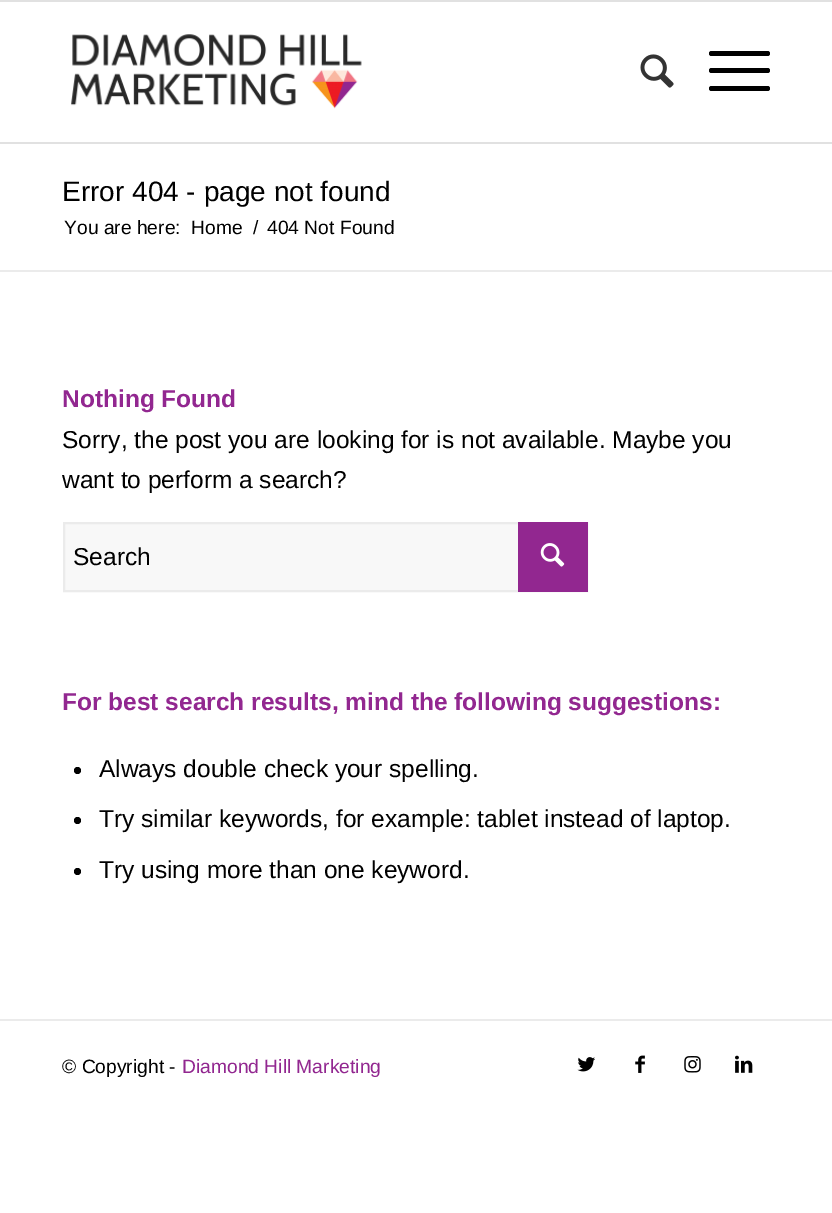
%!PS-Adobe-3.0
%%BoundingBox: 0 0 832 1213
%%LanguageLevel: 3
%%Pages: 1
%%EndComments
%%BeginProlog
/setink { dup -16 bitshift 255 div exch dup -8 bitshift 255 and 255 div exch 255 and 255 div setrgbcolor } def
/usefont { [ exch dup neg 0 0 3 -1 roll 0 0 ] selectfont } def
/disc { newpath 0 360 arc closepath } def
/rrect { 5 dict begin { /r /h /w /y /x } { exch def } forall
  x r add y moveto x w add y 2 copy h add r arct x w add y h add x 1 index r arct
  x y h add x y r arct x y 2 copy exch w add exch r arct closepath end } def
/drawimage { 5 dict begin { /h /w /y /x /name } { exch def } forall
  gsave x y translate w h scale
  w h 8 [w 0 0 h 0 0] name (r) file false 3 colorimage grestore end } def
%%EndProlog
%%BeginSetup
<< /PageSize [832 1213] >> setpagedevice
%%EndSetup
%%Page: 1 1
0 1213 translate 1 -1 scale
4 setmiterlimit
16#FFFFFF setink
0 0 832 1213 rectfill
16#E1E1E1 setink
0 0 832 2 rectfill
0 142 832 2 rectfill
(img1.raw) 71 34 291 75 drawimage
(img2.raw) 640 54 34 34 drawimage
16#000000 setink
709 68 61 5 2.5 rrect fill
709 51 61 5 2.5 rrect fill
709 86 61 5 2.5 rrect fill
/LiberationSans-Regular 28 usefont
62 201 moveto (Error 404 - page not found) show
/LiberationSans-Regular 19.25 usefont
[
    [(You are here:) 64 234]
    [(Home) 191 234]
    [(/) 253 234]
    [(404 Not Found) 267 234]
] { aload pop moveto show } forall
16#EBEBEB setink
0 270 832 2 rectfill
/LiberationSans-Bold 24.5 usefont
16#922790 setink
62 407 moveto (Nothing Found) show
/LiberationSans-Regular 24.5 usefont
16#000000 setink
62 448 moveto (Sorry, the post you are looking for is not available. Maybe you) show
62 488 moveto (want to perform a search?) show
16#F8F8F8 setink
65 524 453 66 rectfill
16#EBEBEB setink
2 setlinewidth
64 523 523 68 rectstroke
16#000000 setink
73 565 moveto (Search) show
16#922790 setink
518 522 70 70 rectfill
(img3.raw) 540 543 25 24 drawimage
/LiberationSans-Bold 24.5 usefont
62 710 moveto (For best search results, mind the following suggestions:) show
16#000000 setink
77.5 770.5 3.5 disc fill
/LiberationSans-Regular 24.5 usefont
99 777 moveto (Always double check your spelling.) show
77.5 820.5 3.5 disc fill
99 827 moveto (Try similar keywords, for example: tablet instead of laptop.) show
77.5 871.5 3.5 disc fill
99 878 moveto (Try using more than one keyword.) show
16#EBEBEB setink
0 1019 832 2 rectfill
/LiberationSans-Regular 19.25 usefont
16#000000 setink
62 1073 moveto (© Copyright -) show
16#922790 setink
182 1073 moveto (Diamond Hill Marketing) show
(img4.raw) 577 1057 18 15 drawimage
(img5.raw) 635 1055 10 18 drawimage
(img6.raw) 684 1056 17 17 drawimage
(img7.raw) 735 1055 18 18 drawimage
showpage
%%EOF
